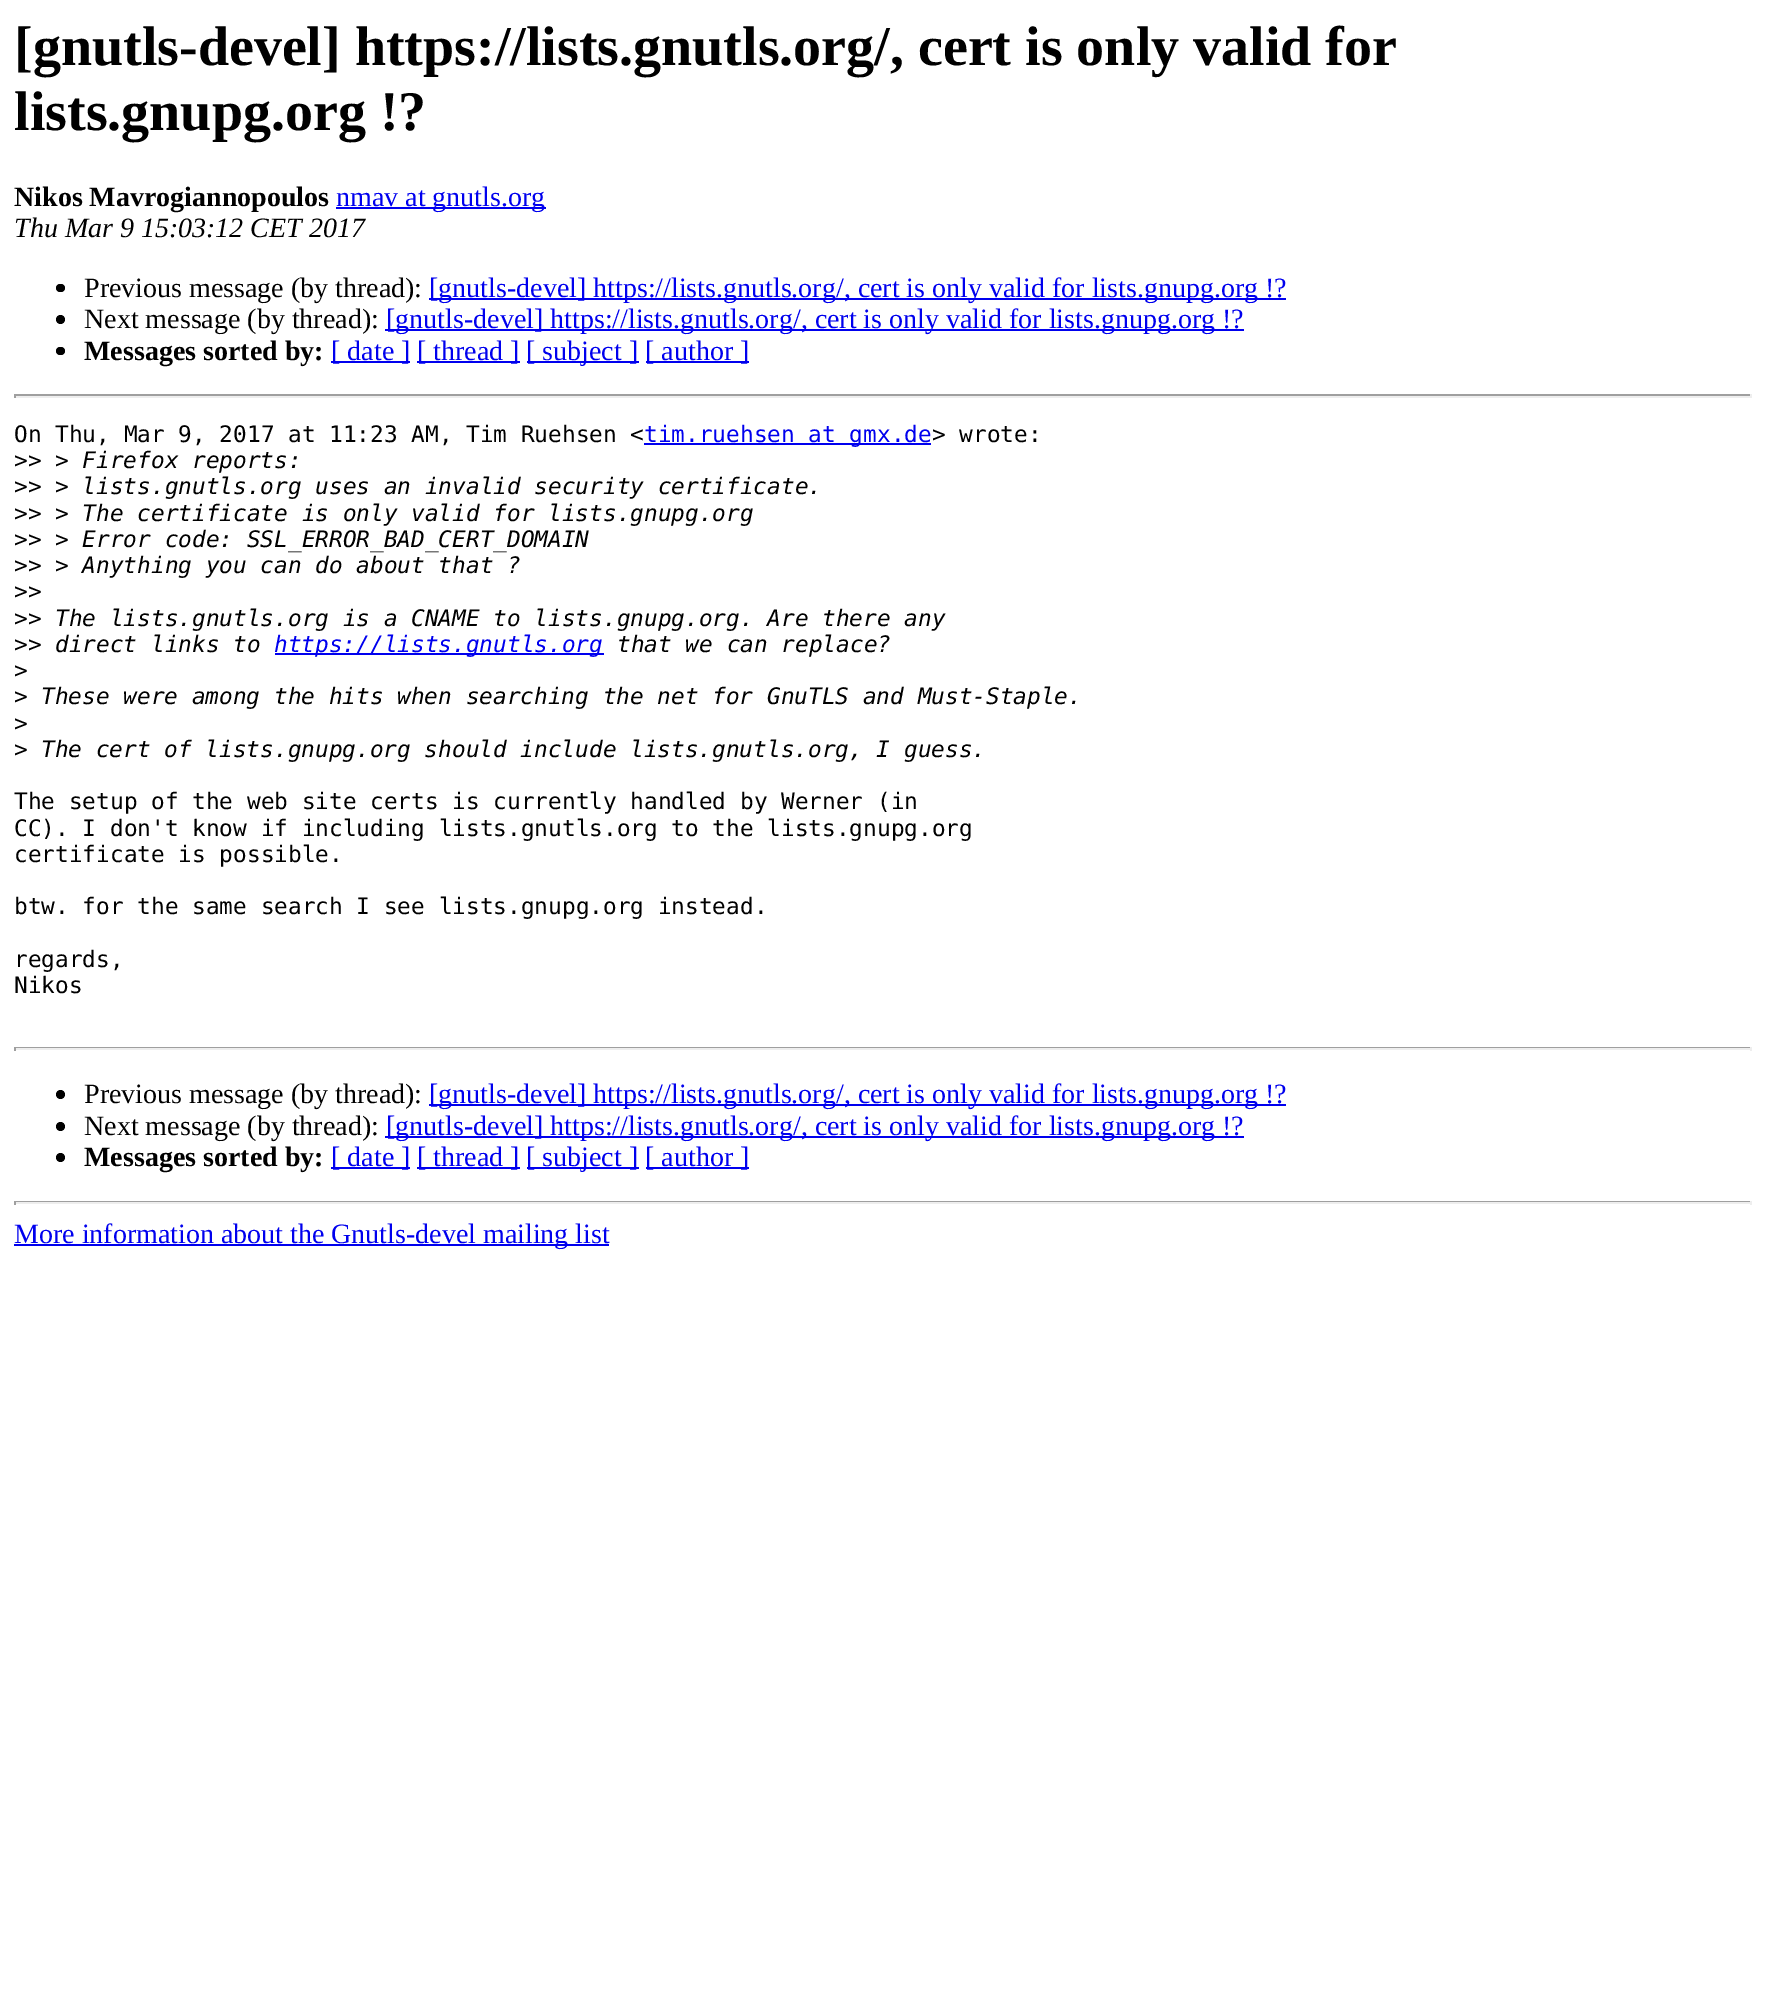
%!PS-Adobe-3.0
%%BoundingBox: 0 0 1765 1990
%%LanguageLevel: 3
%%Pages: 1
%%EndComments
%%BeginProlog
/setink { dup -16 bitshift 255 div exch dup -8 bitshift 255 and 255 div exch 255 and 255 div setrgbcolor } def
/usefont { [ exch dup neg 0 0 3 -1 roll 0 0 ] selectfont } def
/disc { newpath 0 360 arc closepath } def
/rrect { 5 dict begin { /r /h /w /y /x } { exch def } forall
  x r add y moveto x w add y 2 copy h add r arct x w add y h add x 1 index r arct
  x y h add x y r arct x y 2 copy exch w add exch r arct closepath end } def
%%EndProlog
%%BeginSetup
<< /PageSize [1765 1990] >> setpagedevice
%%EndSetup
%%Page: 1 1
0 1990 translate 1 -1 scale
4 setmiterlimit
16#FFFFFF setink
0 0 1765 1990 rectfill
/LiberationSerif-Bold 56 usefont
16#000000 setink
14 65 moveto ([gnutls-devel] https://lists.gnutls.org/, cert is only valid for) show
14 130 moveto (lists.gnupg.org !?) show
/LiberationSerif-Bold 28 usefont
14 206 moveto (Nikos Mavrogiannopoulos) show
16#0000EE setink
336 207 210 2 rectfill
/LiberationSerif-Regular 28 usefont
336 206 moveto (nmav at gnutls.org) show
/LiberationSerif-Italic 28 usefont
16#000000 setink
14 237 moveto (Thu Mar 9 15:03:12 CET 2017) show
56 284 9 8 4 rrect fill
/LiberationSerif-Regular 28 usefont
84 297 moveto (Previous message \(by thread\):) show
16#0000EE setink
429 298 857 2 rectfill
429 297 moveto ([gnutls-devel] https://lists.gnutls.org/, cert is only valid for lists.gnupg.org !?) show
16#000000 setink
60.5 319.5 4.5 disc fill
84 328 moveto (Next message \(by thread\):) show
16#0000EE setink
385 329 859 2 rectfill
386 328 moveto ([gnutls-devel] https://lists.gnutls.org/, cert is only valid for lists.gnupg.org !?) show
16#000000 setink
56 347 9 8 4 rrect fill
/LiberationSerif-Bold 28 usefont
84 360 moveto (Messages sorted by:) show
16#0000EE setink
331 361 79 2 rectfill
/LiberationSerif-Regular 28 usefont
331 360 moveto ([ date ]) show
417 361 103 2 rectfill
417 360 moveto ([ thread ]) show
527 361 112 2 rectfill
526 360 moveto ([ subject ]) show
646 361 103 2 rectfill
645 360 moveto ([ author ]) show
[
    [14 394 1738 2 16#9F9F9F]
    [1750 394 2 4 16#EEEEEE]
    [14 396 1738 2 16#EEEEEE]
    [14 394 2 4 16#9F9F9F]
] { aload pop setink rectfill } forall
/DejaVuSansMono-Regular 22.75 usefont
16#000000 setink
14 442 moveto (On Thu, Mar 9, 2017 at 11:23 AM, Tim Ruehsen <) show
16#0000EE setink
644 443 287 2 rectfill
644 442 moveto (tim.ruehsen at gmx.de) show
16#000000 setink
932 442 moveto (> wrote:) show
14 468 moveto (>>) show
/DejaVuSansMono-Italic 22.75 usefont
55 468 moveto (> Firefox reports:) show
/DejaVuSansMono-Regular 22.75 usefont
14 494 moveto (>>) show
/DejaVuSansMono-Italic 22.75 usefont
55 494 moveto (> lists.gnutls.org uses an invalid security certificate.) show
/DejaVuSansMono-Regular 22.75 usefont
14 521 moveto (>>) show
/DejaVuSansMono-Italic 22.75 usefont
55 521 moveto (> The certificate is only valid for lists.gnupg.org) show
/DejaVuSansMono-Regular 22.75 usefont
14 547 moveto (>>) show
/DejaVuSansMono-Italic 22.75 usefont
55 547 moveto (> Error code: SSL_ERROR_BAD_CERT_DOMAIN) show
/DejaVuSansMono-Regular 22.75 usefont
14 573 moveto (>>) show
/DejaVuSansMono-Italic 22.75 usefont
55 573 moveto (> Anything you can do about that ?) show
/DejaVuSansMono-Regular 22.75 usefont
14 599 moveto (>>) show
14 626 moveto (>>) show
/DejaVuSansMono-Italic 22.75 usefont
55 626 moveto (The lists.gnutls.org is a CNAME to lists.gnupg.org. Are there any) show
/DejaVuSansMono-Regular 22.75 usefont
14 652 moveto (>>) show
/DejaVuSansMono-Italic 22.75 usefont
55 652 moveto (direct links to) show
16#0000EE setink
275 653 329 2 rectfill
274 652 moveto (https://lists.gnutls.org) show
16#000000 setink
617 652 moveto (that we can replace?) show
/DejaVuSansMono-Regular 22.75 usefont
14 678 moveto (>) show
14 704 moveto (>) show
/DejaVuSansMono-Italic 22.75 usefont
41 704 moveto (These were among the hits when searching the net for GnuTLS and Must-Staple.) show
/DejaVuSansMono-Regular 22.75 usefont
14 731 moveto (>) show
14 757 moveto (>) show
/DejaVuSansMono-Italic 22.75 usefont
41 757 moveto (The cert of lists.gnupg.org should include lists.gnutls.org, I guess.) show
/DejaVuSansMono-Regular 22.75 usefont
[
    [(The setup of the web site certs is currently handled by Werner \(in) 14 809]
    [(CC\). I don't know if including lists.gnutls.org to the lists.gnupg.org) 14 836]
    [(certificate is possible.) 14 862]
    [(btw. for the same search I see lists.gnupg.org instead.) 14 914]
    [(regards,) 14 967]
    [(Nikos) 14 993]
] { aload pop moveto show } forall
[
    [14 1047 1738 1 16#9F9F9F]
    [1750 1047 2 4 16#EEEEEE]
    [14 1048 1738 2 16#EEEEEE]
    [14 1047 2 4 16#9F9F9F]
] { aload pop setink rectfill } forall
16#000000 setink
60.5 1094.5 4.5 disc fill
/LiberationSerif-Regular 28 usefont
84 1103 moveto (Previous message \(by thread\):) show
16#0000EE setink
429 1104 857 2 rectfill
429 1103 moveto ([gnutls-devel] https://lists.gnutls.org/, cert is only valid for lists.gnupg.org !?) show
16#000000 setink
60.5 1126.5 4.5 disc fill
84 1135 moveto (Next message \(by thread\):) show
16#0000EE setink
385 1136 859 2 rectfill
386 1135 moveto ([gnutls-devel] https://lists.gnutls.org/, cert is only valid for lists.gnupg.org !?) show
16#000000 setink
60.5 1157.5 4.5 disc fill
/LiberationSerif-Bold 28 usefont
84 1166 moveto (Messages sorted by:) show
16#0000EE setink
331 1167 79 2 rectfill
/LiberationSerif-Regular 28 usefont
331 1166 moveto ([ date ]) show
417 1167 103 2 rectfill
417 1166 moveto ([ thread ]) show
527 1167 112 2 rectfill
526 1166 moveto ([ subject ]) show
646 1167 103 2 rectfill
645 1166 moveto ([ author ]) show
[
    [14 1201 1738 1 16#9F9F9F]
    [1750 1201 2 4 16#EEEEEE]
    [14 1202 1738 2 16#EEEEEE]
    [14 1201 2 4 16#9F9F9F]
    [14 1244 595 2 16#0000EE]
] { aload pop setink rectfill } forall
14 1243 moveto (More information about the Gnutls-devel mailing list) show
showpage
%%EOF
